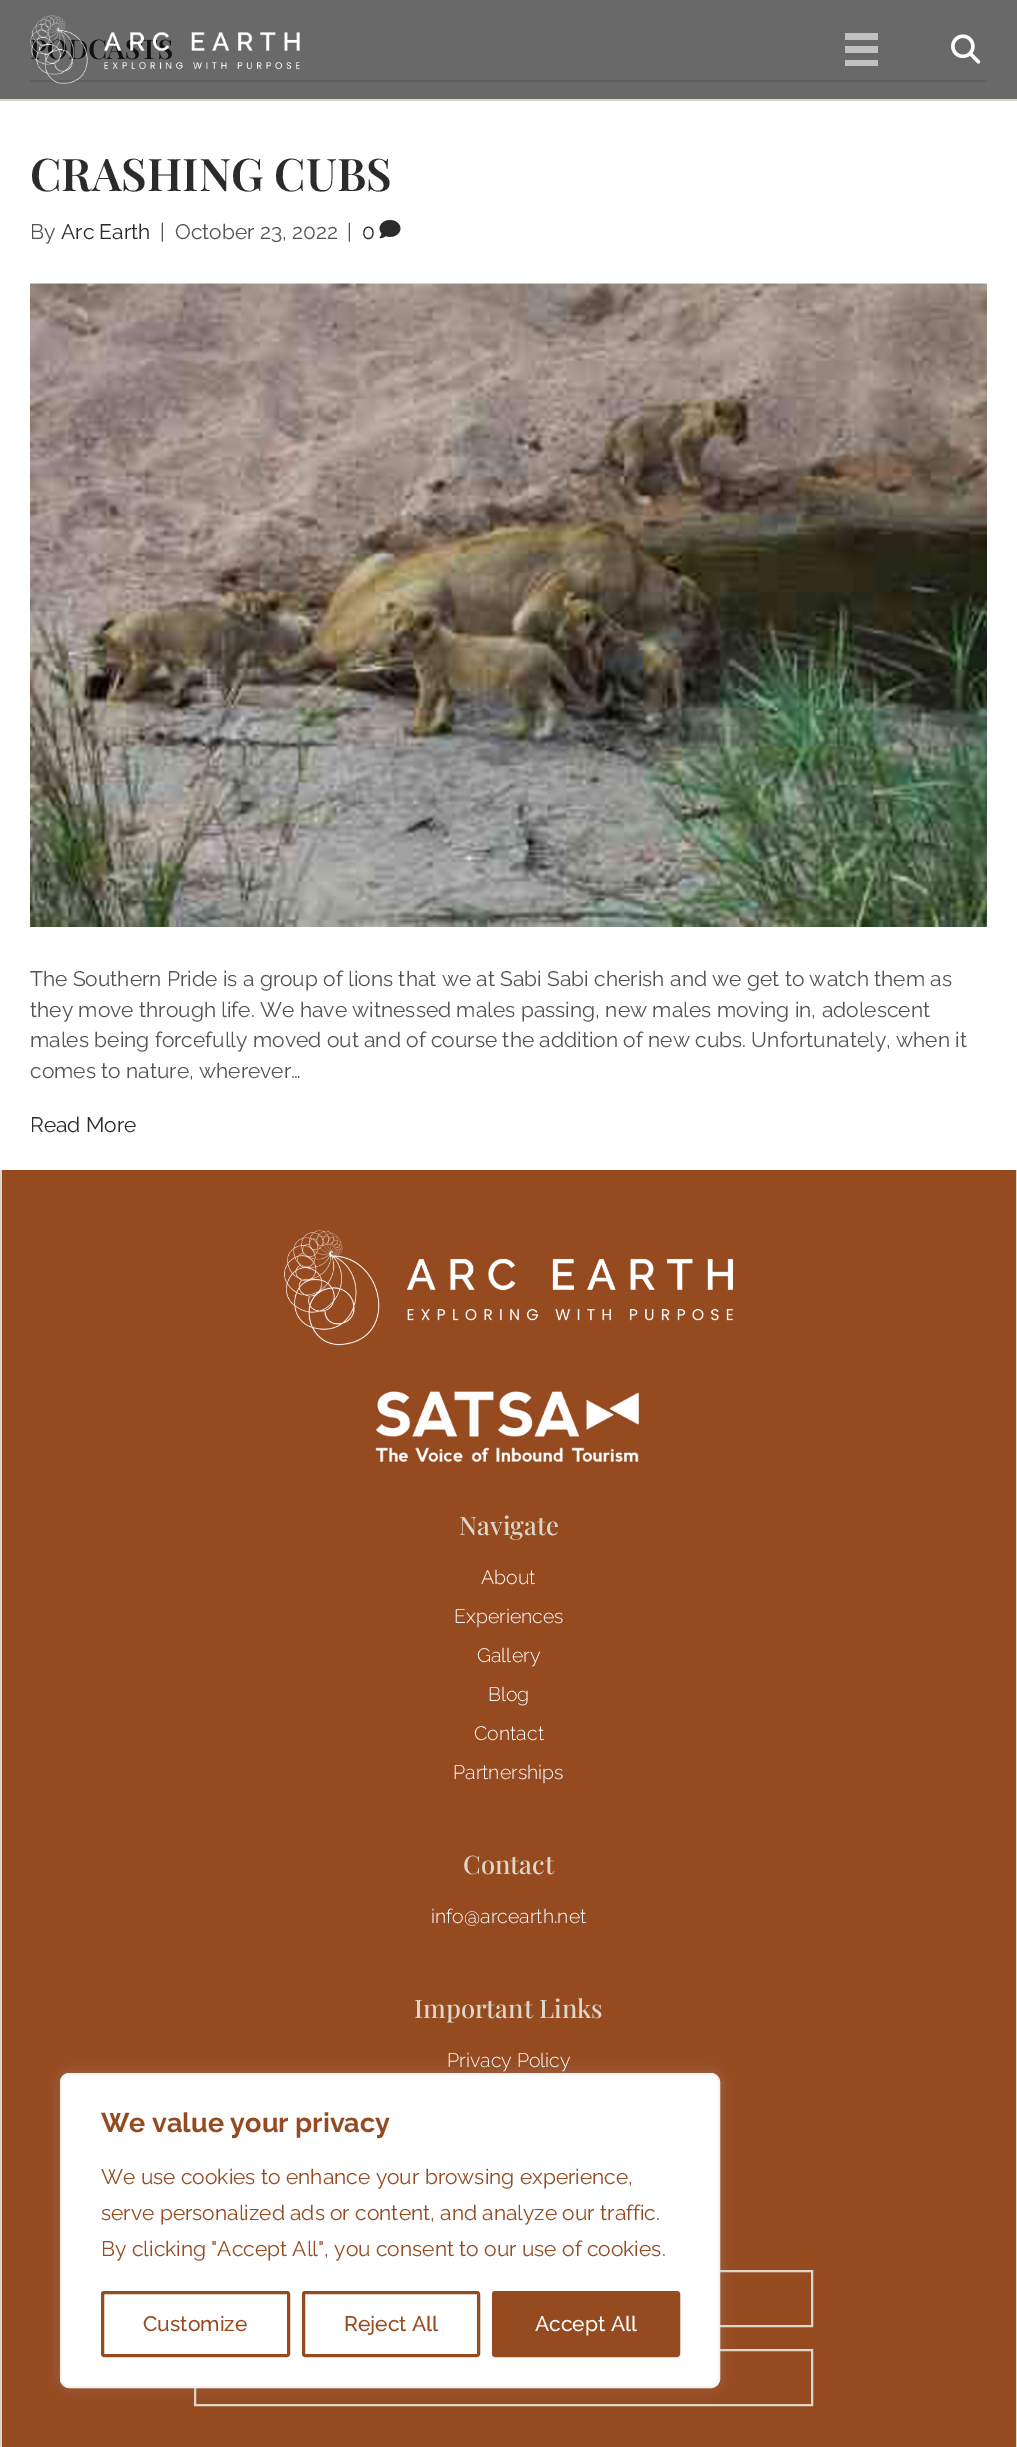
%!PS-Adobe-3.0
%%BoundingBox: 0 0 1017 2447
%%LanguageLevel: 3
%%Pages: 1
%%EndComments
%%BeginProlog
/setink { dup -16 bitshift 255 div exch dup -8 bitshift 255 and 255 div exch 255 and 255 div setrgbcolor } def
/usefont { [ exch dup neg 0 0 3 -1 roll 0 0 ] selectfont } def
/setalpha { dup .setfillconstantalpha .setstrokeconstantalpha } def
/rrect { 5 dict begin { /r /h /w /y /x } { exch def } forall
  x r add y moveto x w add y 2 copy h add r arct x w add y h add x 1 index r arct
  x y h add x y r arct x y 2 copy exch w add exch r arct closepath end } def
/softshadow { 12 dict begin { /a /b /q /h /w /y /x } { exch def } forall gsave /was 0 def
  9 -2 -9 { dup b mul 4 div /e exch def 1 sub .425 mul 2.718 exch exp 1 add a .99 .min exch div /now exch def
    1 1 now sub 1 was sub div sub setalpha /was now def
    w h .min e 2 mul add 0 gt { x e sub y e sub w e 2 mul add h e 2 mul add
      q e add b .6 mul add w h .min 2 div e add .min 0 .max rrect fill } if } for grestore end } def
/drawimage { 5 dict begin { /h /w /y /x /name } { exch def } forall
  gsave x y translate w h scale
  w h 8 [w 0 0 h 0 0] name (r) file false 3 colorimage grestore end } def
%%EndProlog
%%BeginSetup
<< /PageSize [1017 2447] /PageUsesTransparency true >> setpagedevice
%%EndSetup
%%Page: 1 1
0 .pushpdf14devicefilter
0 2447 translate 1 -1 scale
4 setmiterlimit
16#FFFFFF setink
0 0 1017 2447 rectfill
[
    [0 99 1017 2 16#DCD7C9]
    [0 0 1017 99 16#696969]
    [30 80 957 2 16#5E5E5E]
] { aload pop setink rectfill } forall
/PlayfairDisplay-SemiBold 27 usefont
16#121212 setink
30 59 moveto (PODCASTS) show
(img1.raw) 30 15 270 69 drawimage
[
    [845 33 33 7 16#C1C1C1]
    [845 46 33 7 16#C1C1C1]
    [845 60 33 6 16#C1C1C1]
] { aload pop setink rectfill } forall
(img2.raw) 951 34 30 30 drawimage
/PlayfairDisplay-SemiBold 45 usefont
16#2B2B2B setink
30 191 moveto (CRASHING CUBS) show
/Raleway-Regular 21 usefont
16#545454 setink
30 239 moveto (By) show
16#2B2B2B setink
61 239 moveto (Arc Earth) show
16#545454 setink
[
    [(|) 160 239]
    [(October 23, 2022) 175 239]
    [(|) 347 239]
] { aload pop moveto show } forall
16#2B2B2B setink
362 239 moveto (0) show
(img3.raw) 379 220 22 19 drawimage
(img4.raw) 30 283 957 644 drawimage
16#545454 setink
[
    [(The Southern Pride is a group of lions that we at Sabi Sabi cherish and we get to watch them as) 30 986]
    [(they move through life. We have witnessed males passing, new males moving in, adolescent) 30 1017]
    [(males being forcefully moved out and of course the addition of new cubs. Unfortunately, when it) 30 1047]
    [(comes to nature, wherever…) 30 1078]
] { aload pop moveto show } forall
16#2B2B2B setink
30 1132 moveto (Read More) show
[
    [2 1170 1014 1277 16#964A20]
    [1016 1170 1 1277 16#DCD7C9]
    [0 1170 2 1277 16#DCD7C9]
] { aload pop setink rectfill } forall
(img5.raw) 284 1230 450 116 drawimage
(img6.raw) 375 1391 264 71 drawimage
/PlayfairDisplay-Medium 25.5 usefont
459 1535 moveto (Navigate) show
/Raleway-Light 19.5 usefont
16#FFFFFF setink
[
    [(About) 481 1584]
    [(Experiences) 454 1623]
    [(Gallery) 477 1662]
    [(Blog) 488 1701]
    [(Contact) 474 1740]
    [(Partnerships) 453 1779]
] { aload pop moveto show } forall
/PlayfairDisplay-Medium 25.5 usefont
16#DCD7C9 setink
463 1874 moveto (Contact) show
/Raleway-Light 19.5 usefont
16#FFFFFF setink
431 1923 moveto (info@arcearth.net) show
/PlayfairDisplay-Medium 25.5 usefont
16#DCD7C9 setink
414 2018 moveto (Important Links) show
/Raleway-Light 19.5 usefont
16#FFFFFF setink
447 2067 moveto (Privacy Policy) show
16#DCD7C9 setink
2 setlinewidth
195 2271 617 55 rectstroke
195 2350 617 55 rectstroke
16#ACABAB setink
60 2072 660 315 9 7.5 0.3 softshadow
16#FFFFFF setink
61 2074 658 313 8 rrect gsave fill grestore
16#F4F4F4 setink
stroke
/Raleway-Bold 27 usefont
16#964A20 setink
101 2132 moveto (We value your privacy) show
/Raleway-Regular 21 usefont
[
    [(We use cookies to enhance your browsing experience,) 101 2184]
    [(serve personalized ads or content, and analyze our traffic.) 101 2220]
    [(By clicking "Accept All", you consent to our use of cookies.) 101 2256]
] { aload pop moveto show } forall
3 setlinewidth
102.5 2292.5 186 63 1.5 rrect stroke
/Raleway-Medium 21 usefont
143 2331 moveto (Customize) show
303.5 2292.5 175 63 1.5 rrect stroke
344 2331 moveto (Reject All) show
493.5 2292.5 185 63 1.5 rrect gsave fill grestore
stroke
16#FFFFFF setink
535 2331 moveto (Accept All) show
.poppdf14devicefilter showpage
%%EOF
